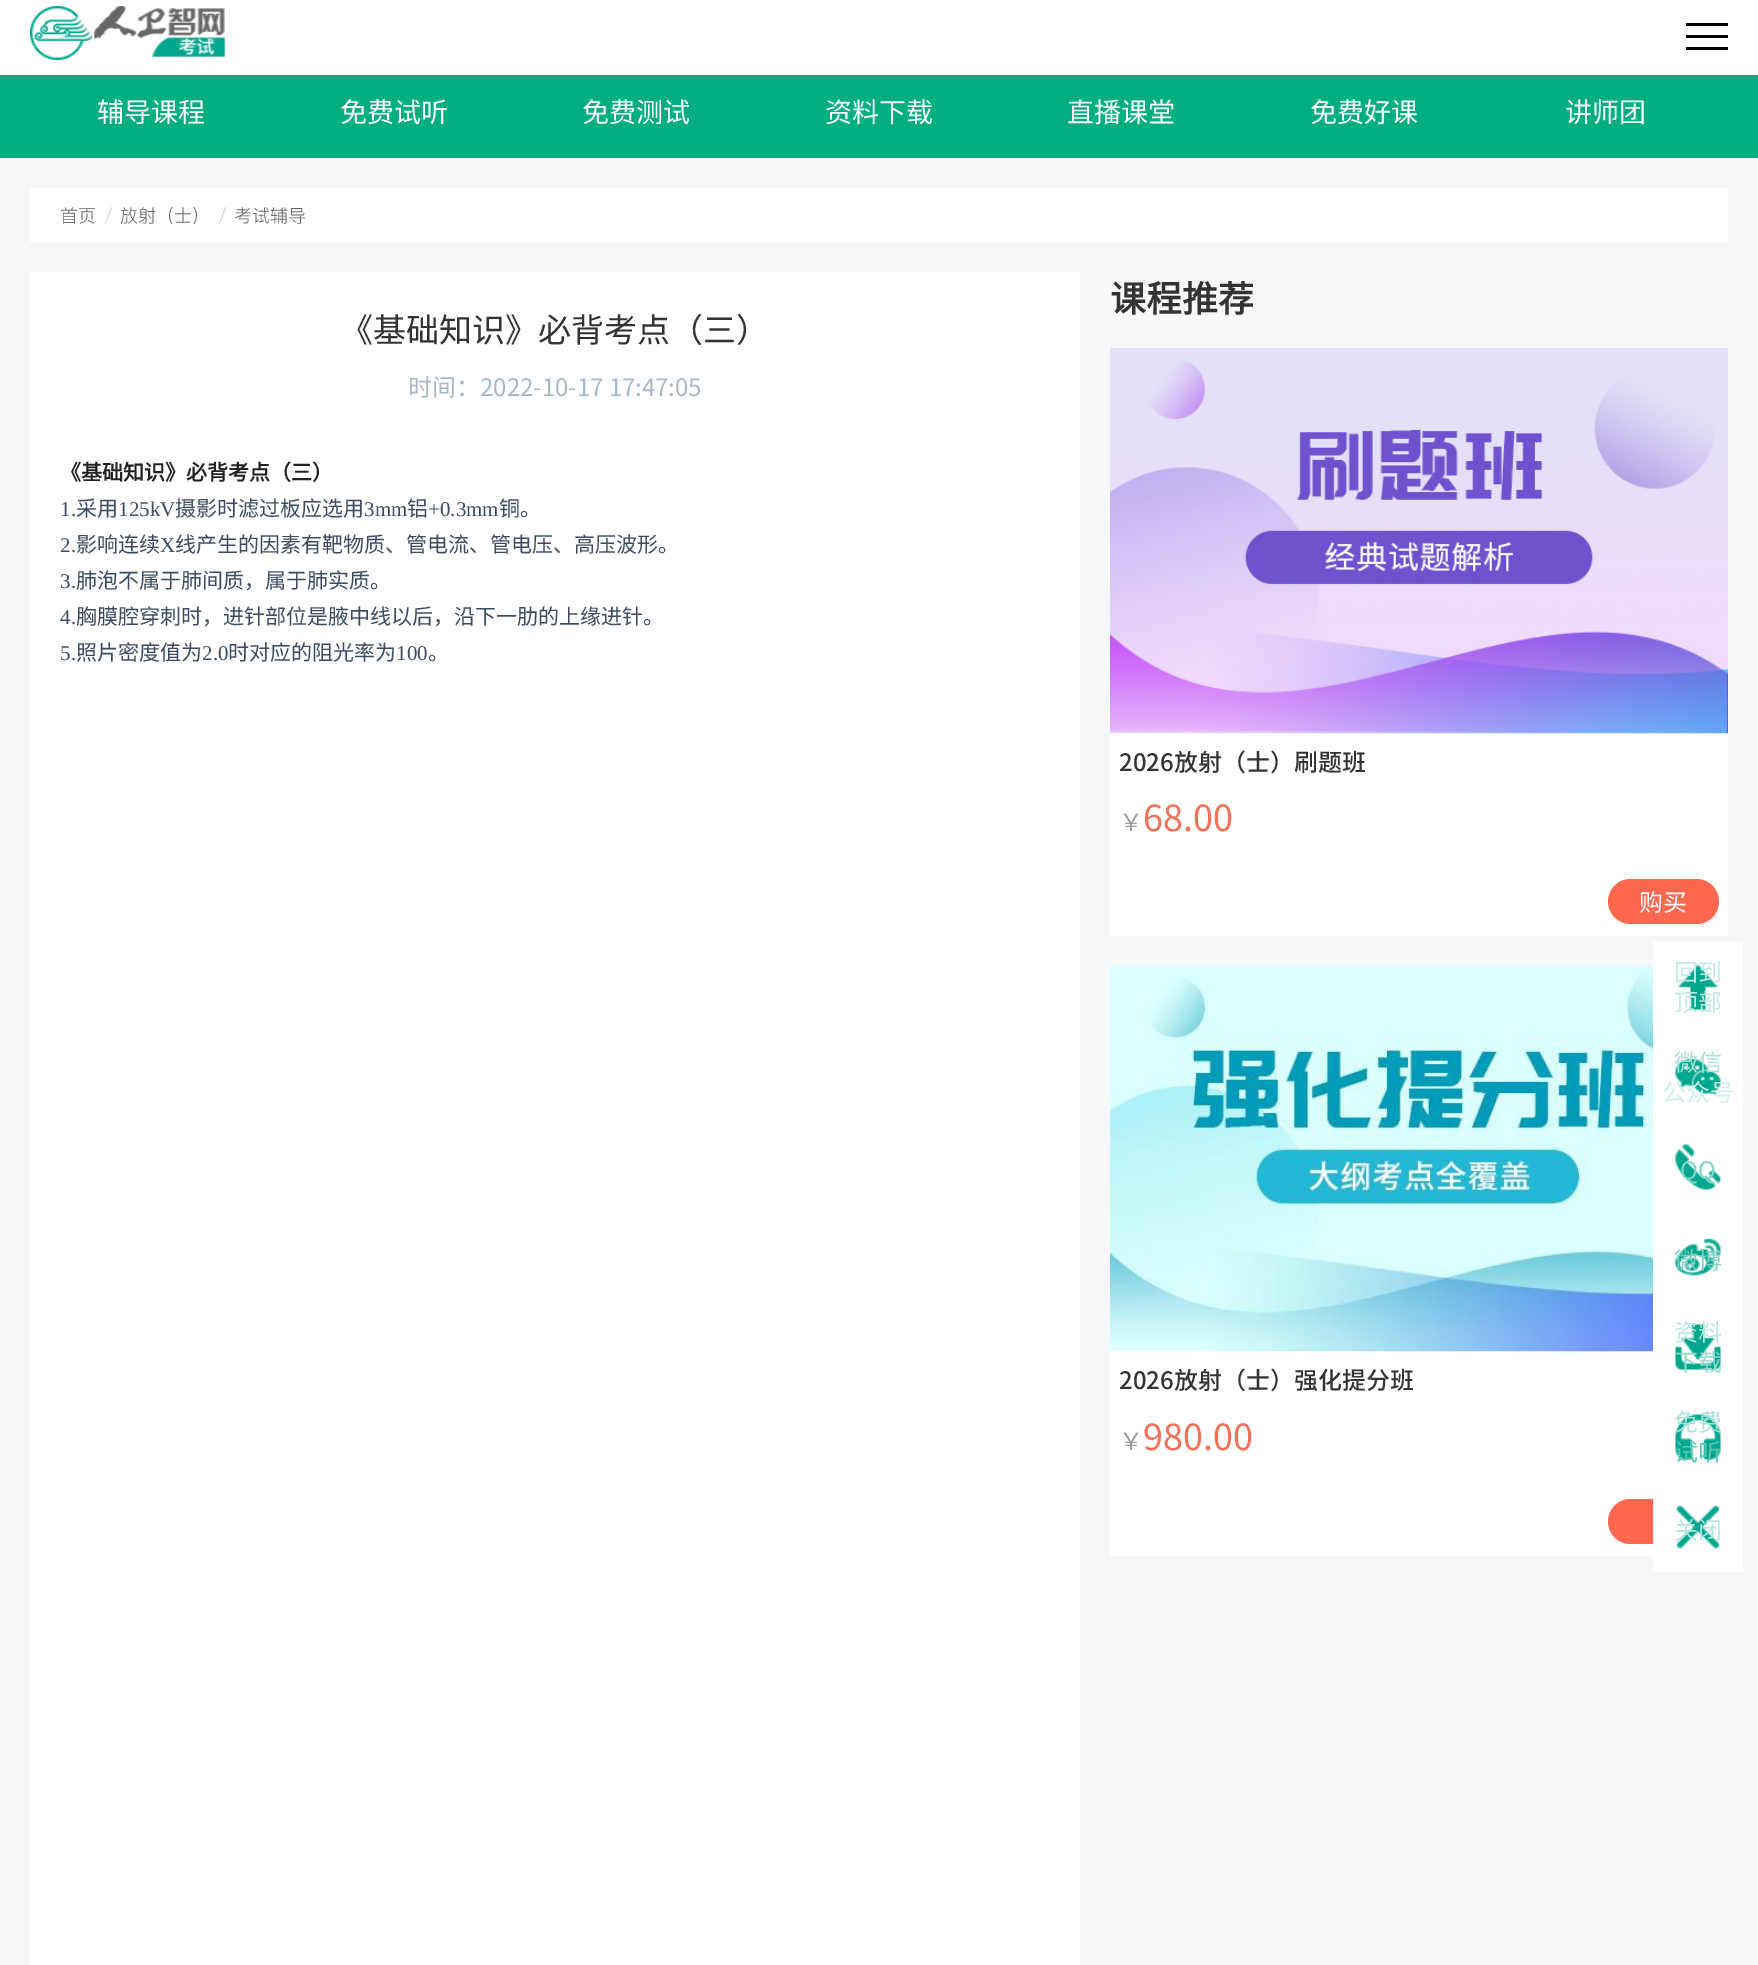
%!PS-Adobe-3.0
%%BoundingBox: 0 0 1758 1965
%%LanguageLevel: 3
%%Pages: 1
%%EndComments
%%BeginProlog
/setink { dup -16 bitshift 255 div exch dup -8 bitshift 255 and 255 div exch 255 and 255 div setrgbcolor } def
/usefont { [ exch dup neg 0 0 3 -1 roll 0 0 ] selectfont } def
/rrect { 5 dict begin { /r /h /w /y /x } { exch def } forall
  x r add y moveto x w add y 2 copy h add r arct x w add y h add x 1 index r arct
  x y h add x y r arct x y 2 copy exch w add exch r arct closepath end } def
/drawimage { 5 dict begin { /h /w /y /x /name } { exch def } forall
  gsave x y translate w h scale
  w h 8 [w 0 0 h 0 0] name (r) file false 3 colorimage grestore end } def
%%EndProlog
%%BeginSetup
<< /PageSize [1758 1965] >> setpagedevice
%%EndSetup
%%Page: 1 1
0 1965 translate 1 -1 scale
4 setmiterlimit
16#F5F7F9 setink
0 0 1758 1965 rectfill
16#FFFFFF setink
0 0 1758 75 rectfill
(img1.raw) 30 6 195 54 drawimage
[
    [1686 35 42 3 16#000000]
    [1686 23 42 3 16#000000]
    [1686 47 42 3 16#000000]
    [0 75 1758 83 16#00AE80]
] { aload pop setink rectfill } forall
/NotoSansCJKSC-Regular 27 usefont
16#FEFEFE setink
[
    [(辅导课程) 97 122]
    [(免费试听) 340 122]
    [(免费测试) 582 122]
    [(资料下载) 825 122]
    [(直播课堂) 1067 122]
    [(免费好课) 1310 122]
    [(讲师团) 1565 122]
] { aload pop moveto show } forall
16#FFFFFF setink
30 188 1698 54 rectfill
/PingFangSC-Regular 18 usefont
16#666666 setink
60 222 moveto (首页) show
16#CCCCCC setink
104 222 moveto (/) show
16#666666 setink
120 222 moveto (放射（士）) show
16#CCCCCC setink
218 222 moveto (/) show
16#666666 setink
234 222 moveto (考试辅导) show
16#FFFFFF setink
30 272 1050 1693 rectfill
/NotoSansCJKSC-Regular 33 usefont
16#333333 setink
340 342 moveto (《基础知识》必背考点（三）) show
/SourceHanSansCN-Regular 24 usefont
16#A8B7C7 setink
408 396 moveto (时间：2022-10-17 17:47:05) show
/NotoSansCJKSC-Bold 21 usefont
16#222222 setink
60 480 moveto (《基础知识》必背考点（三）) show
/LiberationSerif-Regular 21 usefont
16#3D4C63 setink
60 516 moveto (1.) show
/NotoSansCJKSC-Regular 21 usefont
76 516 moveto (采用) show
/LiberationSerif-Regular 21 usefont
118 516 moveto (125kV) show
/NotoSansCJKSC-Regular 21 usefont
175 516 moveto (摄影时滤过板应选用) show
/LiberationSerif-Regular 21 usefont
364 516 moveto (3mm) show
/NotoSansCJKSC-Regular 21 usefont
407 516 moveto (铝) show
/LiberationSerif-Regular 21 usefont
428 516 moveto (+0.3mm) show
/NotoSansCJKSC-Regular 21 usefont
499 516 moveto (铜。) show
/LiberationSerif-Regular 21 usefont
60 552 moveto (2.) show
/NotoSansCJKSC-Regular 21 usefont
76 552 moveto (影响连续) show
/LiberationSerif-Regular 21 usefont
160 552 moveto (X) show
/NotoSansCJKSC-Regular 21 usefont
175 552 moveto (线产生的因素有靶物质、管电流、管电压、高压波形。) show
/LiberationSerif-Regular 21 usefont
60 588 moveto (3.) show
/NotoSansCJKSC-Regular 21 usefont
76 588 moveto (肺泡不属于肺间质，属于肺实质。) show
/LiberationSerif-Regular 21 usefont
60 624 moveto (4.) show
/NotoSansCJKSC-Regular 21 usefont
76 624 moveto (胸膜腔穿刺时，进针部位是腋中线以后，沿下一肋的上缘进针。) show
/LiberationSerif-Regular 21 usefont
60 660 moveto (5.) show
/NotoSansCJKSC-Regular 21 usefont
76 660 moveto (照片密度值为) show
/LiberationSerif-Regular 21 usefont
202 660 moveto (2.0) show
/NotoSansCJKSC-Regular 21 usefont
228 660 moveto (时对应的阻光率为) show
/LiberationSerif-Regular 21 usefont
396 660 moveto (100) show
/NotoSansCJKSC-Regular 21 usefont
428 660 moveto (。) show
/SourceHanSansCN-Bold 36 usefont
16#333333 setink
1110 312 moveto (课程推荐) show
16#FFFFFF setink
1110 733 618 203 rectfill
(img2.raw) 1110 348 618 386 drawimage
/SourceHanSansCN-Medium 24 usefont
16#333333 setink
1119 771 moveto (2026放射（士）刷题班) show
/SourceHanSansCN-Regular 24 usefont
16#999999 setink
1119 831 moveto (￥) show
/SourceHanSansCN-Regular 36 usefont
16#F17259 setink
1143 831 moveto (68.00) show
16#FF684F setink
1608 879 111 45 22.5 rrect fill
/SourceHanSansCN-Regular 24 usefont
16#FEFEFE setink
1639 911 moveto (购买) show
16#FFFFFF setink
1110 1351 543 205 rectfill
(img3.raw) 1110 966 543 386 drawimage
/SourceHanSansCN-Medium 24 usefont
16#333333 setink
1119 1389 moveto (2026放射（士）强化提分班) show
/SourceHanSansCN-Regular 24 usefont
16#999999 setink
1119 1450 moveto (￥) show
/SourceHanSansCN-Regular 36 usefont
16#F17259 setink
1143 1450 moveto (980.00) show
16#FF684F setink
1608 1499 111 45 22.5 rrect fill
16#FFFFFF setink
1653 942 90 630 rectfill
(img4.raw) 1678 964 40 46 drawimage
/SourceHanSansCN-Regular 24 usefont
16#C0E9E3 setink
1674 981 moveto (回到) show
1674 1011 moveto (顶部) show
(img5.raw) 1675 1058 46 38 drawimage
16#ABE2D9 setink
1674 1071 moveto (微信) show
16#D0EFEA setink
1662 1101 moveto (公众号) show
(img6.raw) 1675 1144 46 46 drawimage
16#82D4C7 setink
1680 1179 moveto (QQ) show
(img7.raw) 1675 1238 46 38 drawimage
16#7AD1C3 setink
1674 1269 moveto (微博) show
(img8.raw) 1675 1324 46 46 drawimage
16#B8E7DF setink
1674 1341 moveto (资料) show
16#91D9CE setink
1674 1371 moveto (下载) show
(img9.raw) 1675 1414 46 46 drawimage
16#ABE2D9 setink
1674 1431 moveto (免费) show
16#5DC7B7 setink
1674 1461 moveto (试听) show
(img10.raw) 1676 1505 44 44 drawimage
16#B8E7DF setink
1674 1539 moveto (关闭) show
showpage
%%EOF
